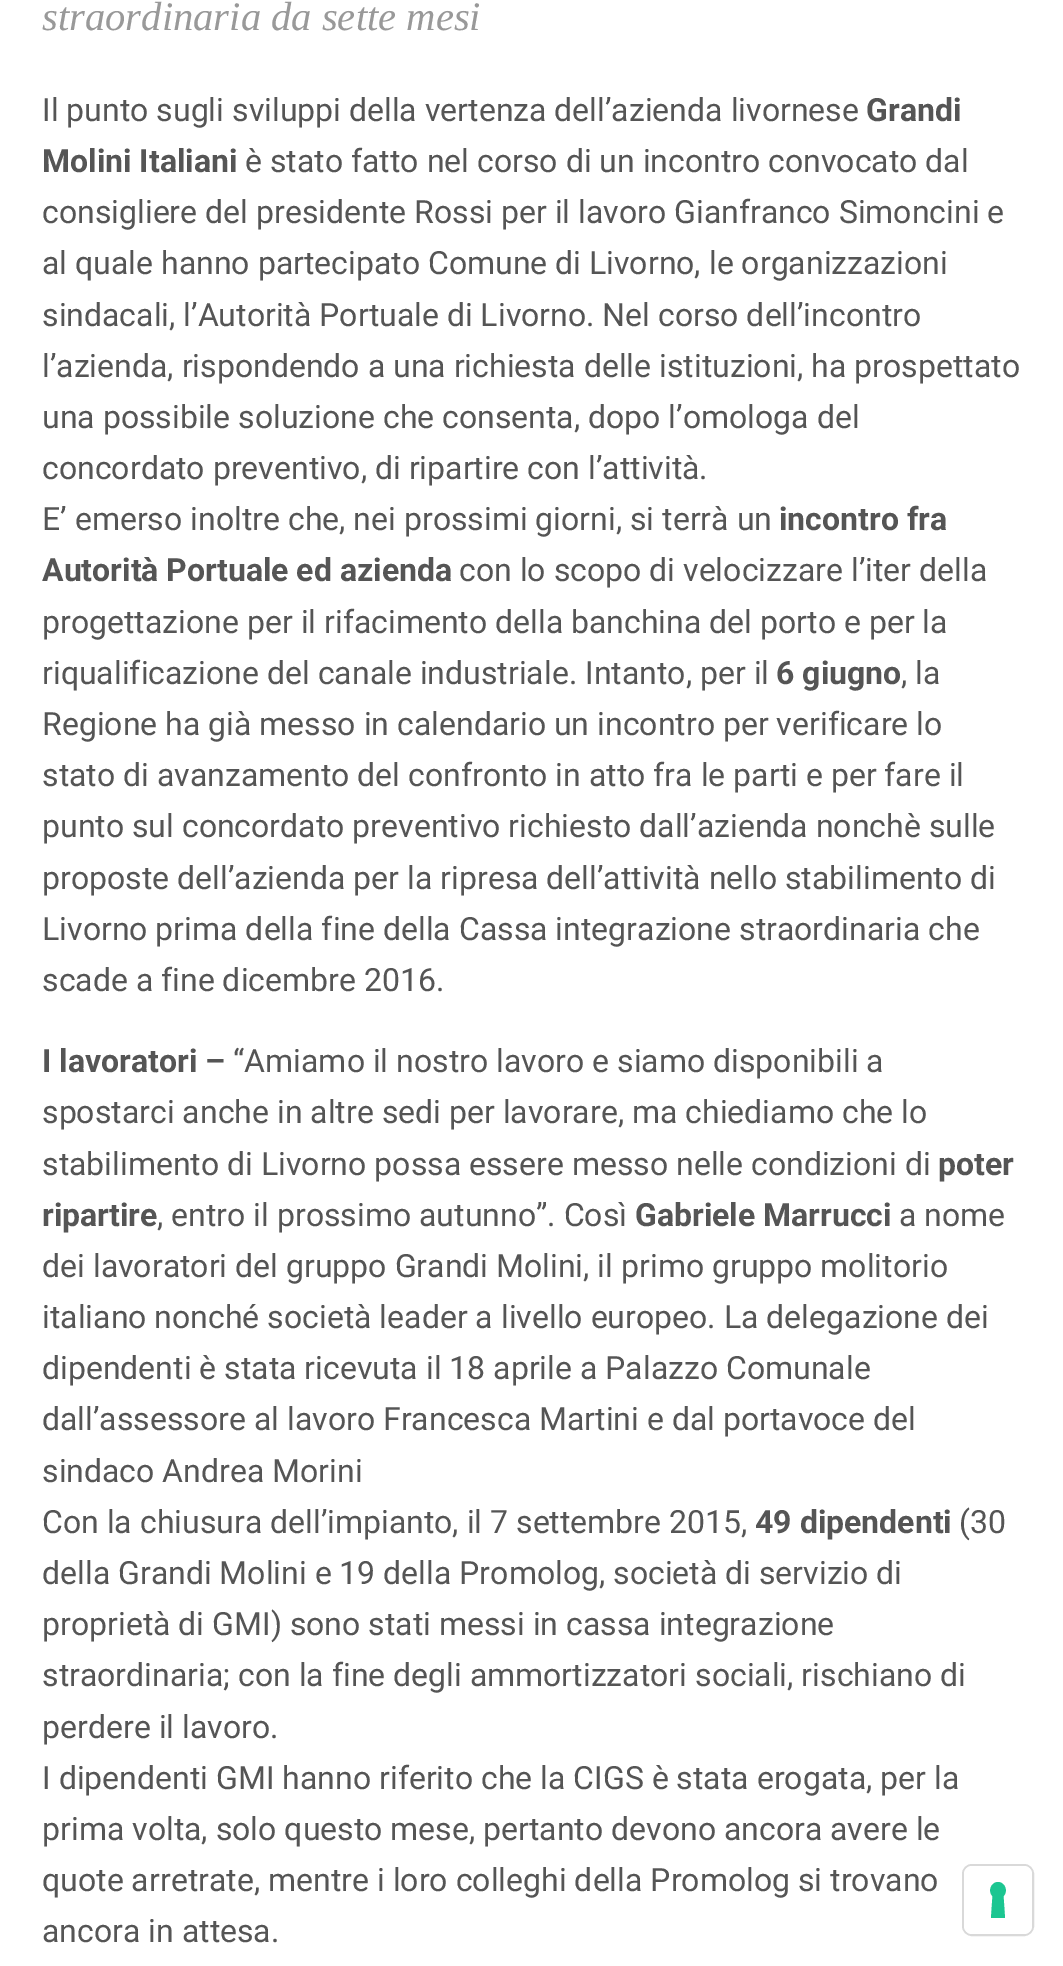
%!PS-Adobe-3.0
%%BoundingBox: 0 0 1063 1966
%%LanguageLevel: 3
%%Pages: 1
%%EndComments
%%BeginProlog
/setink { dup -16 bitshift 255 div exch dup -8 bitshift 255 and 255 div exch 255 and 255 div setrgbcolor } def
/usefont { [ exch dup neg 0 0 3 -1 roll 0 0 ] selectfont } def
/rrect { 5 dict begin { /r /h /w /y /x } { exch def } forall
  x r add y moveto x w add y 2 copy h add r arct x w add y h add x 1 index r arct
  x y h add x y r arct x y 2 copy exch w add exch r arct closepath end } def
%%EndProlog
%%BeginSetup
<< /PageSize [1063 1966] >> setpagedevice
%%EndSetup
%%Page: 1 1
0 1966 translate 1 -1 scale
4 setmiterlimit
16#FFFFFF setink
0 0 1063 1966 rectfill
/LiberationSerif-Italic 40.6 usefont
16#999999 setink
42 30 moveto (straordinaria da sette mesi) show
/Roboto-Regular 32 usefont
16#555555 setink
42 121 moveto (Il punto sugli sviluppi della vertenza dell’azienda livornese) show
/Roboto-Bold 32 usefont
866 121 moveto (Grandi) show
42 172 moveto (Molini Italiani) show
/Roboto-Regular 32 usefont
[
    [(è stato fatto nel corso di un incontro convocato dal) 245 172]
    [(consigliere del presidente Rossi per il lavoro Gianfranco Simoncini e) 42 223]
    [(al quale hanno partecipato Comune di Livorno, le organizzazioni) 42 274]
    [(sindacali, l’Autorità Portuale di Livorno. Nel corso dell’incontro) 42 326]
    [(l’azienda, rispondendo a una richiesta delle istituzioni, ha prospettato) 42 377]
    [(una possibile soluzione che consenta, dopo l’omologa del) 42 428]
    [(concordato preventivo, di ripartire con l’attività.) 42 479]
    [(E’ emerso inoltre che, nei prossimi giorni, si terrà un) 42 530]
] { aload pop moveto show } forall
/Roboto-Bold 32 usefont
779 530 moveto (incontro fra) show
42 581 moveto (Autorità Portuale ed azienda) show
/Roboto-Regular 32 usefont
[
    [(con lo scopo di velocizzare l’iter della) 459 581]
    [(progettazione per il rifacimento della banchina del porto e per la) 42 633]
    [(riqualificazione del canale industriale. Intanto, per il) 42 684]
] { aload pop moveto show } forall
/Roboto-Bold 32 usefont
776 684 moveto (6 giugno) show
/Roboto-Regular 32 usefont
[
    [(, la) 901 684]
    [(Regione ha già messo in calendario un incontro per verificare lo) 42 735]
    [(stato di avanzamento del confronto in atto fra le parti e per fare il) 42 786]
    [(punto sul concordato preventivo richiesto dall’azienda nonchè sulle) 42 837]
    [(proposte dell’azienda per la ripresa dell’attività nello stabilimento di) 42 889]
    [(Livorno prima della fine della Cassa integrazione straordinaria che) 42 940]
    [(scade a fine dicembre 2016.) 42 991]
] { aload pop moveto show } forall
/Roboto-Bold 32 usefont
42 1072 moveto (I lavoratori –) show
/Roboto-Regular 32 usefont
[
    [(“Amiamo il nostro lavoro e siamo disponibili a) 233 1072]
    [(spostarci anche in altre sedi per lavorare, ma chiediamo che lo) 42 1123]
    [(stabilimento di Livorno possa essere messo nelle condizioni di) 42 1175]
] { aload pop moveto show } forall
/Roboto-Bold 32 usefont
938 1175 moveto (poter) show
42 1226 moveto (ripartire) show
/Roboto-Regular 32 usefont
157 1226 moveto (, entro il prossimo autunno”. Così) show
/Roboto-Bold 32 usefont
635 1226 moveto (Gabriele Marrucci) show
/Roboto-Regular 32 usefont
[
    [(a nome) 899 1226]
    [(dei lavoratori del gruppo Grandi Molini, il primo gruppo molitorio) 42 1277]
    [(italiano nonché società leader a livello europeo. La delegazione dei) 42 1328]
    [(dipendenti è stata ricevuta il 18 aprile a Palazzo Comunale) 42 1379]
    [(dall’assessore al lavoro Francesca Martini e dal portavoce del) 42 1430]
    [(sindaco Andrea Morini) 42 1482]
    [(Con la chiusura dell’impianto, il 7 settembre 2015,) 42 1533]
] { aload pop moveto show } forall
/Roboto-Bold 32 usefont
755 1533 moveto (49 dipendenti) show
/Roboto-Regular 32 usefont
[
    [(\(30) 959 1533]
    [(della Grandi Molini e 19 della Promolog, società di servizio di) 42 1584]
    [(proprietà di GMI\) sono stati messi in cassa integrazione) 42 1635]
    [(straordinaria; con la fine degli ammortizzatori sociali, rischiano di) 42 1686]
    [(perdere il lavoro.) 42 1738]
    [(I dipendenti GMI hanno riferito che la CIGS è stata erogata, per la) 42 1789]
    [(prima volta, solo questo mese, pertanto devono ancora avere le) 42 1840]
    [(quote arretrate, mentre i loro colleghi della Promolog si trovano) 42 1891]
    [(ancora in attesa.) 42 1942]
] { aload pop moveto show } forall
16#D9D9D9 setink
2 setlinewidth
963 1865 70 70 9 rrect stroke
16#FFFFFF setink
964 1866 68 68 8 rrect fill
16#1CC691 setink
998 1882 moveto 1005 1882 1008.5 1891.5 1003.5 1896 curveto 1005 1918 lineto 991 1918 lineto 992.5 1896 lineto 987.5 1891.5 991 1882 998 1882 curveto closepath eofill
showpage
%%EOF
